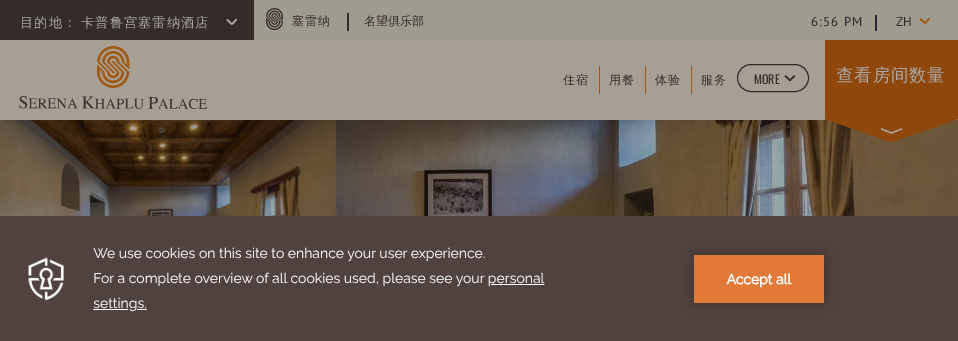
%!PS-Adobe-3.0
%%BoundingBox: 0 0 958 341
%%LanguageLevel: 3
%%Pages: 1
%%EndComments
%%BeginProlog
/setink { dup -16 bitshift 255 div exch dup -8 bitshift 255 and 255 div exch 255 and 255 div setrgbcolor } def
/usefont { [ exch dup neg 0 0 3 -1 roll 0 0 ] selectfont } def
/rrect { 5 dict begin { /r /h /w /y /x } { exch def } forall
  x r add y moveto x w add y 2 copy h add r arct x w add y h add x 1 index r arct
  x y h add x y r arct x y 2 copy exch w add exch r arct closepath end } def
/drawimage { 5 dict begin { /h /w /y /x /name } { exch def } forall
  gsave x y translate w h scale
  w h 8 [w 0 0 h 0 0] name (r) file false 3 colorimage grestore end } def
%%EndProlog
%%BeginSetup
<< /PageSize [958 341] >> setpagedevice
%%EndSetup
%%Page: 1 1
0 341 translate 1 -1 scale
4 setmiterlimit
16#FFFFFF setink
0 0 958 341 rectfill
16#A09B8F setink
254 0 704 40 rectfill
16#352C29 setink
0 0 254 40 rectfill
/WenQuanYiZenHei-Medium 13.25 usefont
16#A8A8A8 setink
20 27 moveto 1 0 (目的地：) ashow
81 27 moveto 1 0 (卡普鲁宫塞雷纳酒店) ashow
(img1.raw) 226 18 12 7 drawimage
(img2.raw) 266 8 17 23 drawimage
/WenQuanYiZenHei-Medium 12 usefont
16#352C29 setink
292 25 moveto 1 0 (塞雷纳) ashow
347 13 2 18 rectfill
364 25 moveto (名望俱乐部) show
16#2A2A2A setink
875 15 2 16 rectfill
/PTSans-Regular 13 usefont
811 26 moveto 1 0 (6:56 PM) ashow
896 26 moveto (ZH) show
(img3.raw) 919 18 12 7 drawimage
16#A6A094 setink
0 40 958 80 rectfill
(img4.raw) 19 46 188 63 drawimage
/WenQuanYiZenHei-Medium 12 usefont
16#352C29 setink
563 84 moveto 1 0 (住宿) ashow
16#A25914 setink
599 66 1 28 rectfill
16#352C29 setink
609 84 moveto 1 0 (用餐) ashow
16#A25914 setink
645 66 1 28 rectfill
16#352C29 setink
655 84 moveto 1 0 (体验) ashow
16#A25914 setink
691 66 1 28 rectfill
16#352C29 setink
701 84 moveto 1 0 (服务) ashow
16#322C2A setink
737.5 64.5 71 27 13.5 rrect stroke
/Oswald-Regular 12 usefont
16#352C29 setink
754 84 moveto (MORE) show
(img5.raw) 784 75 12 7 drawimage
16#8F470C setink
825 40 133 79 rectfill
/WenQuanYiZenHei-Medium 17.5 usefont
16#A8A8A8 setink
836 81 moveto 0.75 0 (查看房间数量) ashow
(img6.raw) 335 120 623 96 drawimage
16#8F470C setink
825 119 moveto 957 119 lineto 891 142 lineto closepath fill
892 142 moveto 825 119 lineto 958 119 lineto closepath fill
16#A8A8A8 setink
1.3 setlinewidth
1 setlinecap
1 setlinejoin
891.5 133 moveto 881.5 129 lineto 891.5 133 lineto 901.5 129 lineto closepath stroke
(img7.raw) 0 120 336 96 drawimage
(img8.raw) 0 216 958 125 drawimage
showpage
%%EOF
